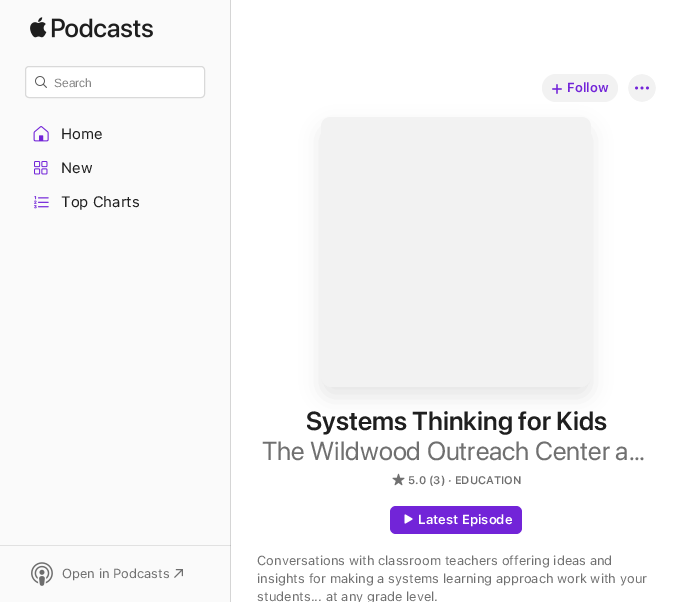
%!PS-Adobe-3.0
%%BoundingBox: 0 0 681 602
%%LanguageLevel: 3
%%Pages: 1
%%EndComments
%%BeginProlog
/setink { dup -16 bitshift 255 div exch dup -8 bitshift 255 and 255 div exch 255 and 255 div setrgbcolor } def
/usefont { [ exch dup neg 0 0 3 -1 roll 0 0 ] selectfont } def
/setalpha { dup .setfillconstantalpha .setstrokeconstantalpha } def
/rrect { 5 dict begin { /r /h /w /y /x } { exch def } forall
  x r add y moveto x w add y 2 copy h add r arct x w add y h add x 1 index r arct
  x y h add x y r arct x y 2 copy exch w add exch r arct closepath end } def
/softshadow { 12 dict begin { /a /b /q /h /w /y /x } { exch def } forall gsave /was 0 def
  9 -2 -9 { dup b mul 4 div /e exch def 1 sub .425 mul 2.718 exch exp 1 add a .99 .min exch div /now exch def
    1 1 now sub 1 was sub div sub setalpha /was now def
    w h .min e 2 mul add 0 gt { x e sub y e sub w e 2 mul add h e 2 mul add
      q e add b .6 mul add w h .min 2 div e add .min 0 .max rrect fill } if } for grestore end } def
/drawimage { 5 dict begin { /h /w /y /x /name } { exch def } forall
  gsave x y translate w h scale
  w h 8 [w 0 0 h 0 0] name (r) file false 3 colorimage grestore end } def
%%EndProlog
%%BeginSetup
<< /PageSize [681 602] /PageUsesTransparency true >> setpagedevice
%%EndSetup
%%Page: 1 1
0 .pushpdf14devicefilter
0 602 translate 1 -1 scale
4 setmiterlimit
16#FFFFFF setink
0 0 681 602 rectfill
[
    [0 0 230 602 16#FAFAFA]
    [0 545 231 1 16#E1E1E1]
    [230 0 1 602 16#D5D5D5]
    [230 545 1 1 16#C0C0C0]
] { aload pop setink rectfill } forall
(img1.raw) 30 17 123 21 drawimage
16#FFFFFF setink
25.5 66.5 179 31 3.5 rrect gsave fill grestore
16#D9D9D9 setink
stroke
(img2.raw) 35 76 12 12 drawimage
/LiberationSans-Regular 12 usefont
16#858585 setink
54 87 moveto (Search) show
(img3.raw) 33 126 16 16 drawimage
/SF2-Regular 15 usefont
16#1F1F1F setink
61 139 moveto (Home) show
(img4.raw) 34 161 14 14 drawimage
61 173 moveto (New) show
(img5.raw) 34 196 15 13 drawimage
61 207 moveto (Top Charts) show
(img6.raw) 31 562 22 24 drawimage
/SF2-Regular 13 usefont
16#707070 setink
62 578 moveto (Open in Podcasts) show
(img7.raw) 174 569 9 9 drawimage
16#F2F2F2 setink
542 74 76 28 14 rrect fill
(img8.raw) 552 84 10 10 drawimage
/SF-SemiBold 13 usefont
16#7224D8 setink
567 92 moveto (Follow) show
(img9.raw) 628 74 28 28 drawimage
16#000000 setink
321 127 270 270 10 10 0.1 softshadow
16#FFFFFF setink
321 117 270 270 10 rrect fill
0.1 setalpha
16#808080 setink
331 117 moveto 581 117 lineto 587 117 591 121 591 127 curveto 591 377 lineto 591 383 587 387 581 387 curveto 331 387 lineto 325 387 321 383 321 377 curveto 321 127 lineto 321 121 325 117 331 117 curveto closepath fill
/SF2-SemiBold 26 usefont
1 setalpha
16#1F1F1F setink
306 430 moveto (Systems Thinking for Kids) show
/SF-Regular 26 usefont
16#707070 setink
262 460 moveto (The Wildwood Outreach Center a…) show
(img10.raw) 392 473 13 13 drawimage
/SF-SemiBold 11 usefont
408 484 moveto (5.0 \(3\) · EDUCATION) show
16#7224D8 setink
390 506 132 28 6 rrect fill
(img11.raw) 404 514 9 10 drawimage
/SF-SemiBold 13 usefont
16#FFFFFF setink
418 524 moveto (Latest Episode) show
/SF2-Regular 13 usefont
16#707070 setink
[
    [(Conversations with classroom teachers offering ideas and) 257 565]
    [(insights for making a systems learning approach work with your) 257 583]
    [(students... at any grade level.) 257 601]
] { aload pop moveto show } forall
.poppdf14devicefilter showpage
%%EOF
